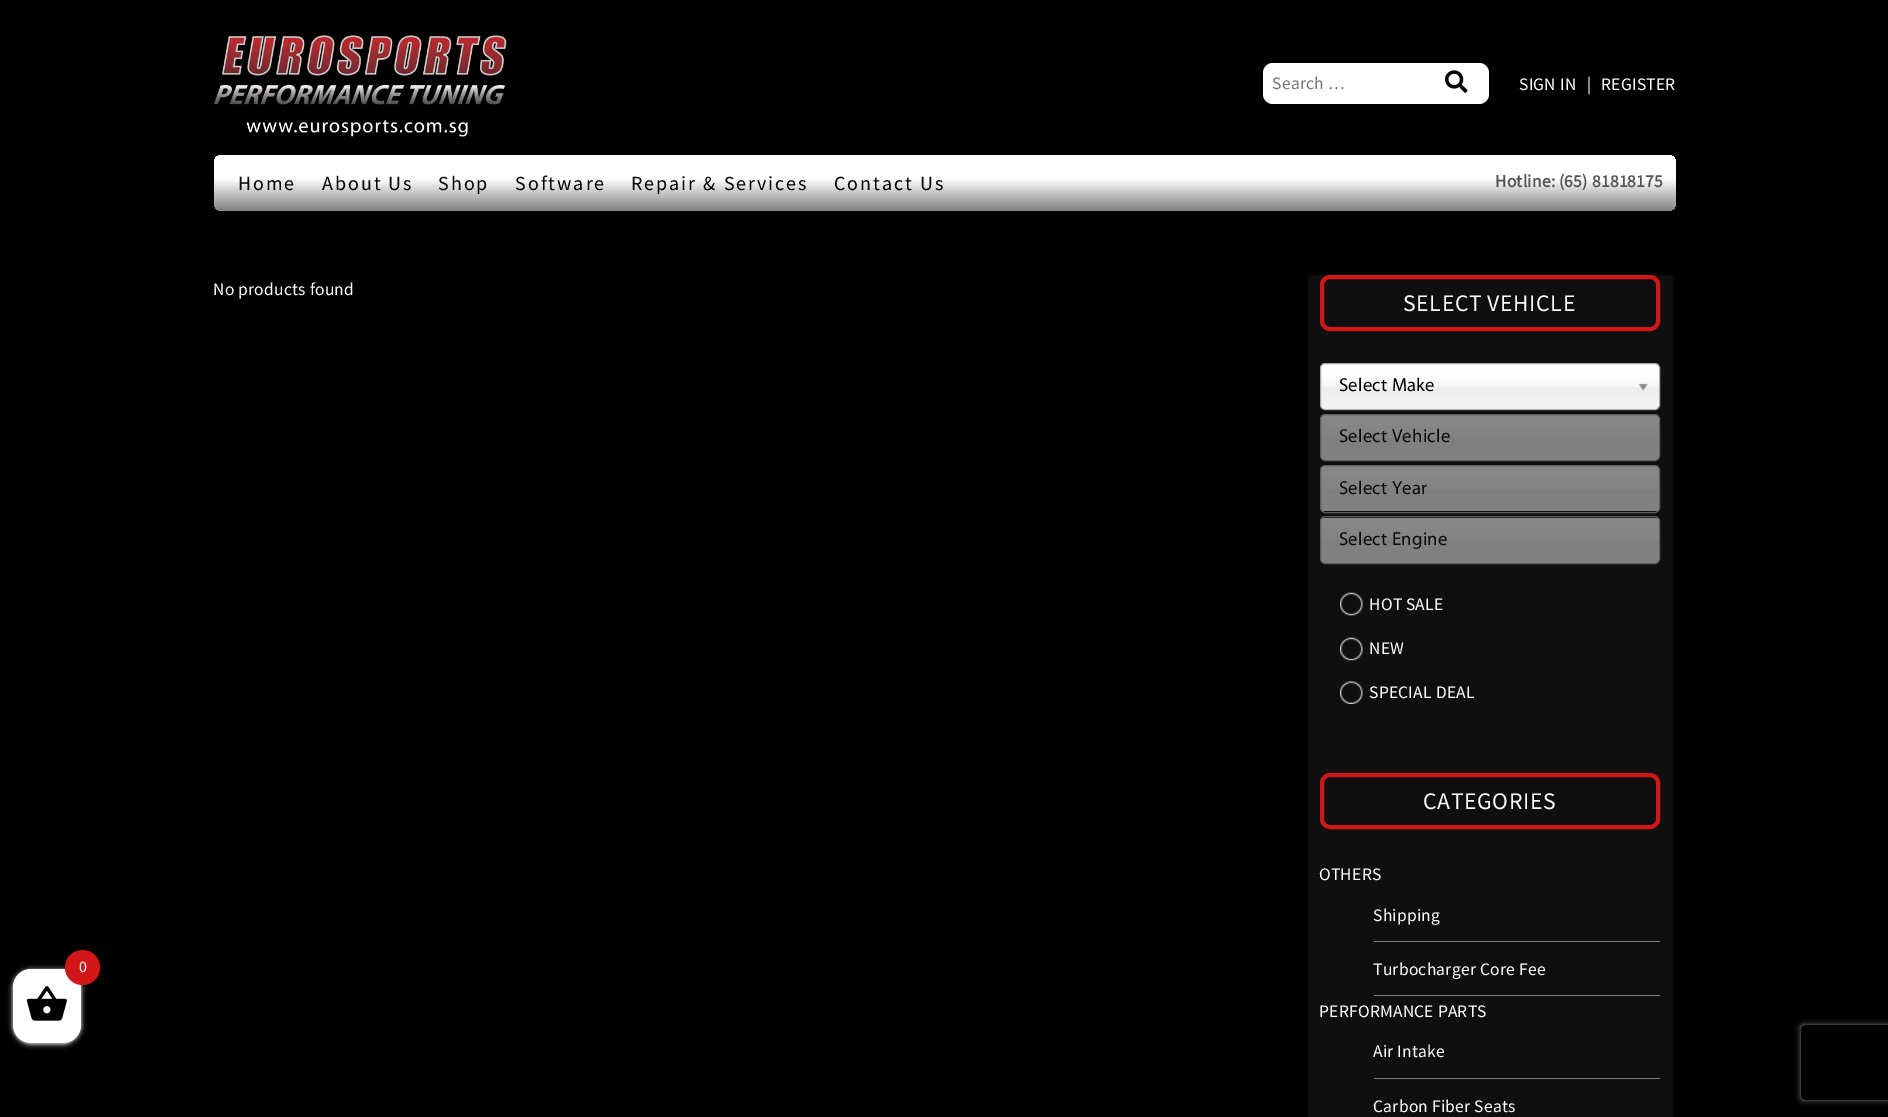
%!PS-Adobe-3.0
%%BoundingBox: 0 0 1888 1117
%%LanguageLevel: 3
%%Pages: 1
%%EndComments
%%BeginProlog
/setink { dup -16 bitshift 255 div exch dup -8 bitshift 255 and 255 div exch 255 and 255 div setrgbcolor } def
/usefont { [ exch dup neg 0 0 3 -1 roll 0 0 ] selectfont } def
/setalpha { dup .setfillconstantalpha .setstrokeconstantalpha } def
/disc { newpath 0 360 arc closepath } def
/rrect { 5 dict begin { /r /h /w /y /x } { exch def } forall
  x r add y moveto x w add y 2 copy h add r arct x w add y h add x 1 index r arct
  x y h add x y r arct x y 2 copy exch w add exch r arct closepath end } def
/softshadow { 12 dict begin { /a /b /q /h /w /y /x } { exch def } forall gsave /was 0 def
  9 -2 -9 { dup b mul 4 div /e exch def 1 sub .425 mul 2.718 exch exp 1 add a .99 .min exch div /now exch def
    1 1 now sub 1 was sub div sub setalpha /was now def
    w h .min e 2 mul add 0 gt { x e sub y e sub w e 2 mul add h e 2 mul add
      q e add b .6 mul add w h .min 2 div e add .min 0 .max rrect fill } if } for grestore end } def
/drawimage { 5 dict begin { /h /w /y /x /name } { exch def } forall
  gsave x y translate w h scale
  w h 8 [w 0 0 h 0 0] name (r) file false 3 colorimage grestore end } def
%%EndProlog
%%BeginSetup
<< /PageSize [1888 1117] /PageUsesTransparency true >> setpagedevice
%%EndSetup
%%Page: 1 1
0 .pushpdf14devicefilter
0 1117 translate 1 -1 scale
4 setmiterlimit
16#000000 setink
0 0 1888 1117 rectfill
16#FFFFFF setink
13 970 68 74 18 2.5 1 softshadow
13 969 68 74 18 rrect fill
16#D11717 setink
82.5 967.5 17.5 disc fill
/SourceSansPro-Regular 16 usefont
16#FFFFFF setink
79 972 moveto 0.25 0 (0) ashow
(img1.raw) 26 986 41 35 drawimage
(img2.raw) 213 35 294 102 drawimage
gsave
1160 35 moveto 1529 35 lineto 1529 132 lineto 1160 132 lineto closepath 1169 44 moveto 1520 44 lineto 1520 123 lineto 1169 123 lineto closepath eoclip newpath
16#000000 setink
1169 44 351 79 0 2.5 0.15 softshadow
grestore
1263 63 226 41 10 rrect fill
/SourceSansPro-Regular 17.5 usefont
16#757575 setink
1272 89 moveto 0.25 0 (Search …) ashow
(img3.raw) 1445 70 23 23 drawimage
16#FFFFFF setink
1519 90 moveto 0.25 0 (SIGN IN) ashow
1587 90 moveto 0.25 0 (|) ashow
1601 90 moveto 0.25 0 (REGISTER) ashow
gsave 214 155 1462 56 8 rrect clip newpath
<< /ShadingType 2 /ColorSpace /DeviceRGB /Coords [945 155 945 211] /Extend [true true] /Function << /FunctionType 3 /Domain [0 1] /Functions [<< /FunctionType 2 /Domain [0 1] /C0 [1 1 1] /C1 [1 1 1] /N 1 >> << /FunctionType 2 /Domain [0 1] /C0 [1 1 1] /C1 [0.502 0.502 0.502] /N 1 >>] /Bounds [0.42] /Encode [0 1 0 1] >> >> shfill grestore
/SourceSansPro-Regular 20 usefont
16#000000 setink
238 190 moveto 2 0 (Home) ashow
322 190 moveto 2 0 (About Us) ashow
438 190 moveto 2 0 (Shop) ashow
515 190 moveto 2 0 (Software) ashow
631 190 moveto 2 0 (Repair & Services) ashow
834 190 moveto 2 0 (Contact Us) ashow
/SourceSansPro-Bold 17.5 usefont
16#545454 setink
1495 187 moveto 0.25 0 (Hotline: \(65\) 81818175) ashow
/SourceSansPro-Regular 17.5 usefont
16#FFFFFF setink
213 295 moveto 0.25 0 (No products found) ashow
16#0F0F0F setink
1308 275 365 842 rectfill
16#D11717 setink
4 setlinewidth
1322 277 336 52 8 rrect stroke
/SourceSansPro-Regular 23.75 usefont
16#FFFFFF setink
1403 311 moveto 0.6 0 (SELECT VEHICLE) ashow
gsave 1321 364 338 45 4 rrect clip newpath
<< /ShadingType 2 /ColorSpace /DeviceRGB /Coords [1490 364 1490 409] /Extend [true true] /Function << /FunctionType 3 /Domain [0 1] /Functions [<< /FunctionType 2 /Domain [0 1] /C0 [1 1 1] /C1 [1 1 1] /N 1 >> << /FunctionType 2 /Domain [0 1] /C0 [1 1 1] /C1 [0.965 0.965 0.965] /N 1 >> << /FunctionType 2 /Domain [0 1] /C0 [0.965 0.965 0.965] /C1 [0.933 0.933 0.933] /N 1 >> << /FunctionType 2 /Domain [0 1] /C0 [0.933 0.933 0.933] /C1 [0.957 0.957 0.957] /N 1 >>] /Bounds [0.2 0.5 0.52] /Encode [0 1 0 1 0 1 0 1] >> >> shfill grestore
16#AAAAAA setink
1 setlinewidth
1320.5 363.5 339 46 4.5 rrect stroke
/Myriad-Regular 18.75 usefont
16#000000 setink
1339 391 moveto 0.25 0 (Select Make) ashow
(img4.raw) 1638 383 10 8 drawimage
gsave 1321 415 338 45 4 rrect clip newpath
<< /ShadingType 2 /ColorSpace /DeviceRGB /Coords [1490 415 1490 460] /Extend [true true] /Function << /FunctionType 3 /Domain [0 1] /Functions [<< /FunctionType 2 /Domain [0 1] /C0 [0.529 0.529 0.529] /C1 [0.529 0.529 0.529] /N 1 >> << /FunctionType 2 /Domain [0 1] /C0 [0.529 0.529 0.529] /C1 [0.514 0.514 0.514] /N 1 >> << /FunctionType 2 /Domain [0 1] /C0 [0.514 0.514 0.514] /C1 [0.498 0.498 0.498] /N 1 >> << /FunctionType 2 /Domain [0 1] /C0 [0.498 0.498 0.498] /C1 [0.51 0.51 0.51] /N 1 >>] /Bounds [0.2 0.5 0.52] /Encode [0 1 0 1 0 1 0 1] >> >> shfill grestore
16#5D5D5D setink
1320.5 414.5 339 46 4.5 rrect stroke
16#080808 setink
1339 442 moveto 0.25 0 (Select Vehicle) ashow
16#848484 setink
1642 438 2 1 rectfill
gsave 1321 466 338 45 4 rrect clip newpath
<< /ShadingType 2 /ColorSpace /DeviceRGB /Coords [1490 466 1490 511] /Extend [true true] /Function << /FunctionType 3 /Domain [0 1] /Functions [<< /FunctionType 2 /Domain [0 1] /C0 [0.529 0.529 0.529] /C1 [0.529 0.529 0.529] /N 1 >> << /FunctionType 2 /Domain [0 1] /C0 [0.529 0.529 0.529] /C1 [0.514 0.514 0.514] /N 1 >> << /FunctionType 2 /Domain [0 1] /C0 [0.514 0.514 0.514] /C1 [0.498 0.498 0.498] /N 1 >> << /FunctionType 2 /Domain [0 1] /C0 [0.498 0.498 0.498] /C1 [0.51 0.51 0.51] /N 1 >>] /Bounds [0.2 0.5 0.52] /Encode [0 1 0 1 0 1 0 1] >> >> shfill grestore
16#5D5D5D setink
1320.5 465.5 339 47 4.5 rrect stroke
16#080808 setink
1339 494 moveto 0.25 0 (Select Year) ashow
(img5.raw) 1642 489 3 1 drawimage
gsave 1321 518 338 45 4 rrect clip newpath
<< /ShadingType 2 /ColorSpace /DeviceRGB /Coords [1490 518 1490 563] /Extend [true true] /Function << /FunctionType 3 /Domain [0 1] /Functions [<< /FunctionType 2 /Domain [0 1] /C0 [0.529 0.529 0.529] /C1 [0.529 0.529 0.529] /N 1 >> << /FunctionType 2 /Domain [0 1] /C0 [0.529 0.529 0.529] /C1 [0.514 0.514 0.514] /N 1 >> << /FunctionType 2 /Domain [0 1] /C0 [0.514 0.514 0.514] /C1 [0.498 0.498 0.498] /N 1 >> << /FunctionType 2 /Domain [0 1] /C0 [0.498 0.498 0.498] /C1 [0.51 0.51 0.51] /N 1 >>] /Bounds [0.2 0.5 0.52] /Encode [0 1 0 1 0 1 0 1] >> >> shfill grestore
16#5D5D5D setink
1320.5 516.5 339 47 4.5 rrect stroke
16#080808 setink
1339 545 moveto 0.25 0 (Select Engine) ashow
(img6.raw) 1340 592 23 24 drawimage
/SourceSansPro-Regular 17.5 usefont
16#FFFFFF setink
1369 610 moveto 0.25 0 (HOT SALE) ashow
(img6.raw) 1340 637 23 24 drawimage
1369 654 moveto 0.25 0 (NEW) ashow
(img7.raw) 1340 681 23 23 drawimage
1369 698 moveto 0.25 0 (SPECIAL DEAL) ashow
16#D11717 setink
4 setlinewidth
1322 775 336 52 8 rrect stroke
/SourceSansPro-Regular 23.75 usefont
16#FFFFFF setink
1423 809 moveto 0.6 0 (CATEGORIES) ashow
/SourceSansPro-Regular 17.5 usefont
1319 880 moveto 0.25 0 (OTHERS) ashow
16#808080 setink
1374 941 286 1 rectfill
16#FFFFFF setink
1373 921 moveto 0.25 0 (Shipping) ashow
16#808080 setink
1374 995 286 1 rectfill
16#FFFFFF setink
1373 975 moveto 0.25 0 (Turbocharger Core Fee) ashow
1319 1017 moveto 0.25 0 (PERFORMANCE PARTS) ashow
16#808080 setink
1374 1078 286 1 rectfill
16#FFFFFF setink
1373 1057 moveto 0.25 0 (Air Intake) ashow
1373 1112 moveto 0.25 0 (Carbon Fiber Seats) ashow
gsave
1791 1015 moveto 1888 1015 lineto 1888 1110 lineto 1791 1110 lineto closepath 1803.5 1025 moveto 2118.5 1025 lineto 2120 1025 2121 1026 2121 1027.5 curveto 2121 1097.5 lineto 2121 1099 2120 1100 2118.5 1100 curveto 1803.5 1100 lineto 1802 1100 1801 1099 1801 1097.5 curveto 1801 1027.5 lineto 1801 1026 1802 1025 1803.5 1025 curveto closepath eoclip newpath
16#808080 setink
1801 1025 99 75 2.5 3 1 softshadow
grestore
.poppdf14devicefilter showpage
%%EOF
